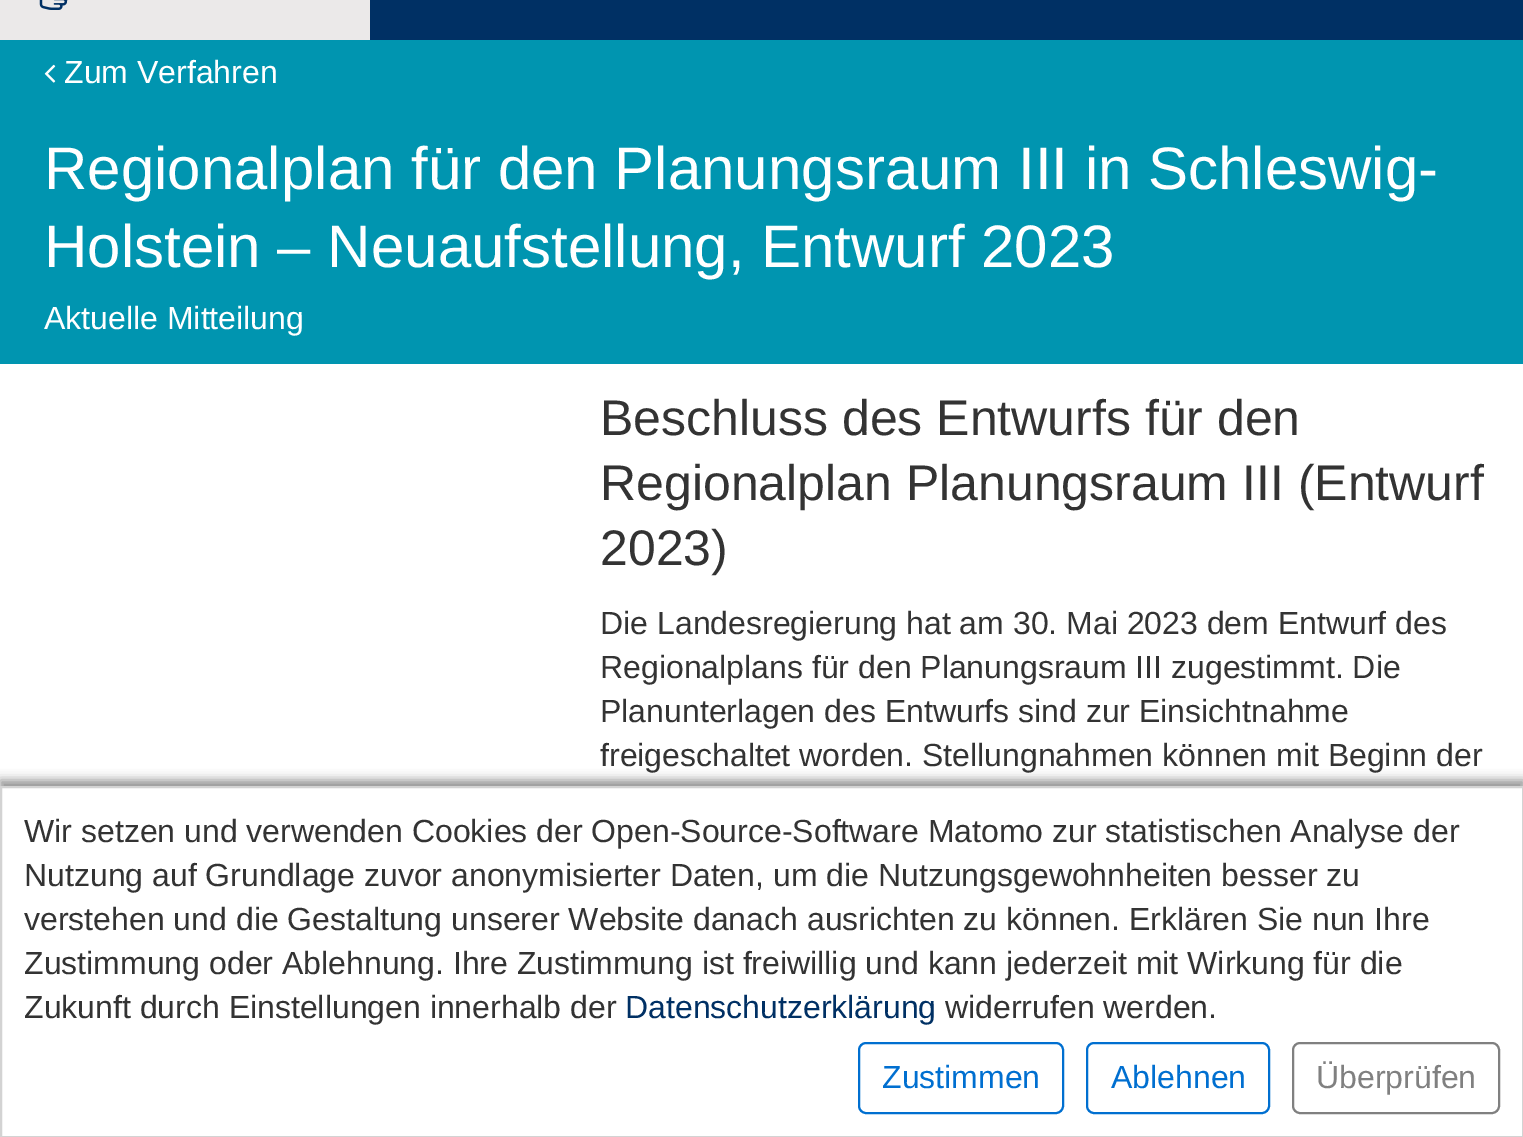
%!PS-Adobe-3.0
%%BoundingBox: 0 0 1523 1137
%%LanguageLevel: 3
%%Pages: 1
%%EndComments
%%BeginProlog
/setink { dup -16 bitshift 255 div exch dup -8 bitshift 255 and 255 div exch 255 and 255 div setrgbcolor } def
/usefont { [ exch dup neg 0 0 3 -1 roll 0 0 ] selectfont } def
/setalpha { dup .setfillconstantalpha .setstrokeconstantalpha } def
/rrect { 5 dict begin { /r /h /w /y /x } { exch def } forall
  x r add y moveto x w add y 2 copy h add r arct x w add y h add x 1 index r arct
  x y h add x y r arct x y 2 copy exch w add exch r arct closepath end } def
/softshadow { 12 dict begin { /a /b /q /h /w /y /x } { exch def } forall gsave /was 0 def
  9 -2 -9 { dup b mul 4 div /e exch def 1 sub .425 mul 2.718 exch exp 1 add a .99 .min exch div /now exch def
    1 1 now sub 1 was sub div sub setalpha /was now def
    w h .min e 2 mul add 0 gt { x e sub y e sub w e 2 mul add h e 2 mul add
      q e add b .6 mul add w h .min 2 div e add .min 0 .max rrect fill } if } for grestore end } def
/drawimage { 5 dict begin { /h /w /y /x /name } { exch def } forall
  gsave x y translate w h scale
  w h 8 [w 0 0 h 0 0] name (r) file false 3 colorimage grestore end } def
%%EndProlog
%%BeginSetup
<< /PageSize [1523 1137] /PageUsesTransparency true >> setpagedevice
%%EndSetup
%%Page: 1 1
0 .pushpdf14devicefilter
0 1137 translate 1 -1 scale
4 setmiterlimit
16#FFFFFF setink
0 0 1523 1137 rectfill
16#003064 setink
370 0 1153 40 rectfill
16#EBE9E9 setink
0 0 370 40 rectfill
(img1.raw) 39 0 29 10 drawimage
16#0095B0 setink
0 40 1523 324 rectfill
(img2.raw) 44 64 12 19 drawimage
/LiberationSans-Regular 32 usefont
16#FFFFFF setink
64 83 moveto (Zum Verfahren) show
/LiberationSans-Regular 60 usefont
44 189 moveto (Regionalplan für den Planungsraum III in Schleswig-) show
44 267 moveto (Holstein – Neuaufstellung, Entwurf 2023) show
/LiberationSans-Regular 32 usefont
44 329 moveto (Aktuelle Mitteilung) show
/LiberationSans-Regular 50 usefont
16#333333 setink
[
    [(Beschluss des Entwurfs für den) 600 435]
    [(Regionalplan Planungsraum III \(Entwurf) 600 500]
    [(2023\)) 600 565]
] { aload pop moveto show } forall
/LiberationSans-Regular 32 usefont
[
    [(Die Landesregierung hat am 30. Mai 2023 dem Entwurf des) 600 634]
    [(Regionalplans für den Planungsraum III zugestimmt. Die) 600 678]
    [(Planunterlagen des Entwurfs sind zur Einsichtnahme) 600 722]
    [(freigeschaltet worden. Stellungnahmen können mit Beginn der) 600 766]
] { aload pop moveto show } forall
16#484848 setink
0 780 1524 352 0 5 0.6 softshadow
16#FFFFFF setink
1 787 moveto 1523 787 lineto 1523 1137 lineto 1 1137 lineto closepath gsave fill grestore
16#D3D3D3 setink
2 setlinewidth
stroke
16#333333 setink
[
    [(Wir setzen und verwenden Cookies der Open-Source-Software Matomo zur statistischen Analyse der) 24 842]
    [(Nutzung auf Grundlage zuvor anonymisierter Daten, um die Nutzungsgewohnheiten besser zu) 24 886]
    [(verstehen und die Gestaltung unserer Website danach ausrichten zu können. Erklären Sie nun Ihre) 24 930]
    [(Zustimmung oder Ablehnung. Ihre Zustimmung ist freiwillig und kann jederzeit mit Wirkung für die) 24 974]
    [(Zukunft durch Einstellungen innerhalb der) 24 1018]
] { aload pop moveto show } forall
16#003064 setink
625 1018 moveto (Datenschutzerklärung) show
16#333333 setink
945 1018 moveto (widerrufen werden.) show
16#006FD0 setink
859 1043 204 70 7 rrect stroke
882 1088 moveto (Zustimmen) show
1087 1043 182 70 7 rrect stroke
1111 1088 moveto (Ablehnen) show
16#808080 setink
1293 1043 206 70 7 rrect stroke
1316 1088 moveto (Überprüfen) show
.poppdf14devicefilter showpage
%%EOF
